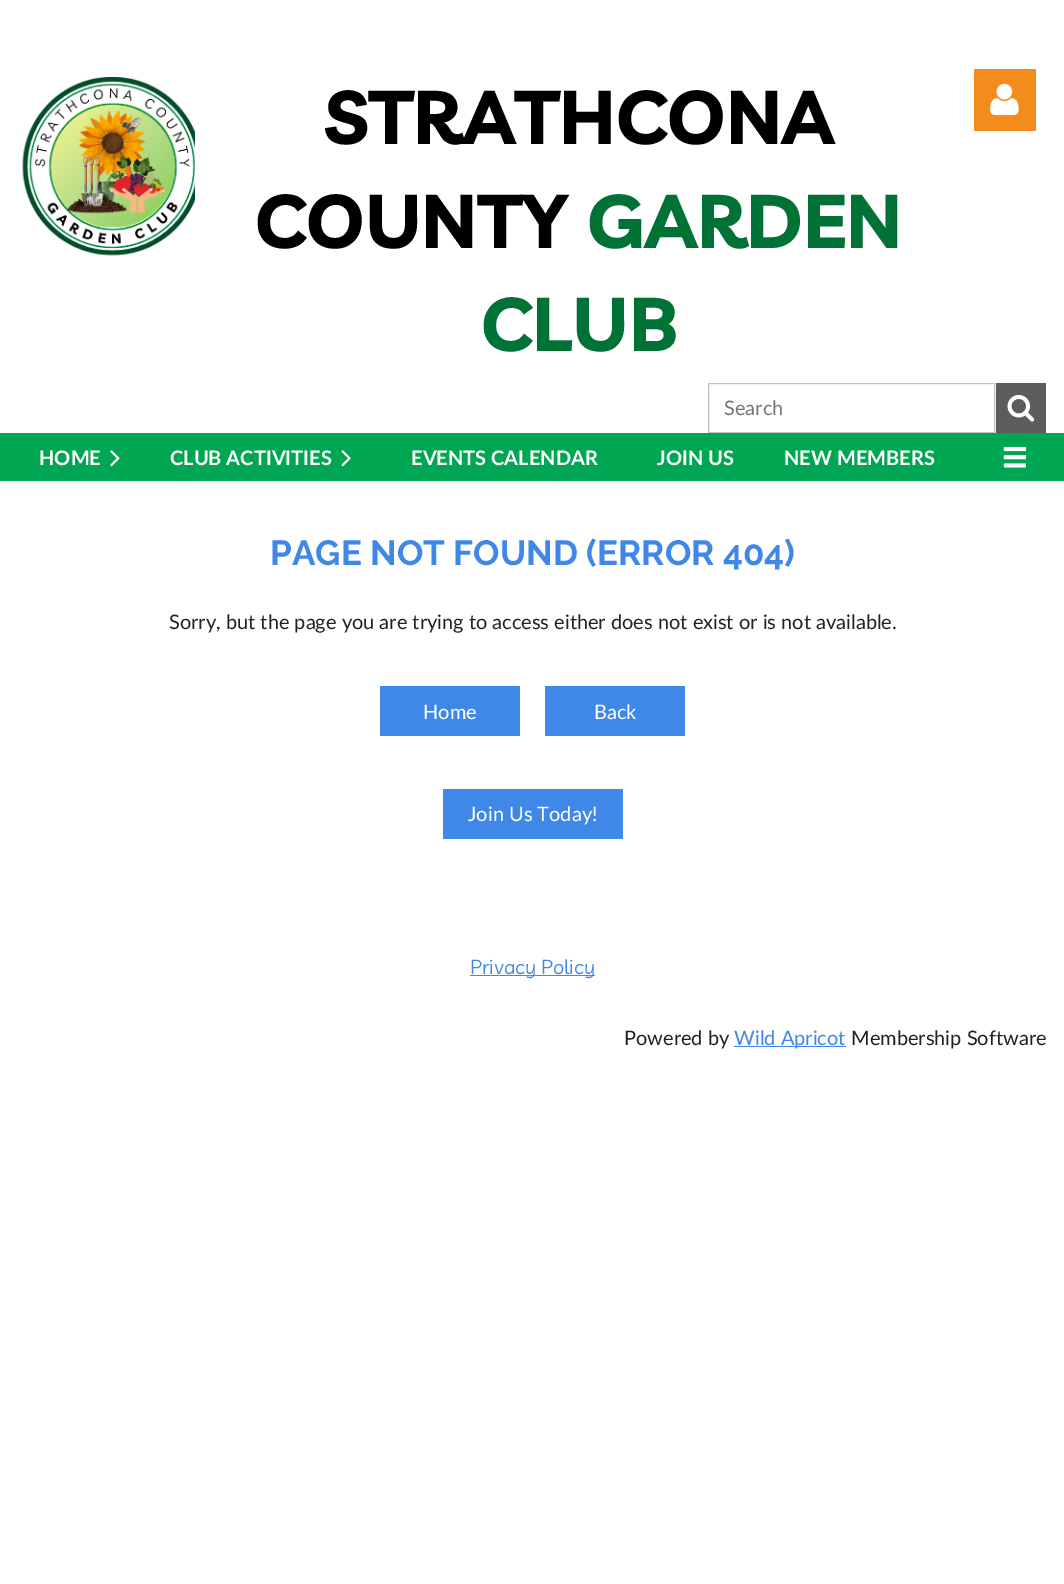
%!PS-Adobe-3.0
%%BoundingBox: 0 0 1064 1584
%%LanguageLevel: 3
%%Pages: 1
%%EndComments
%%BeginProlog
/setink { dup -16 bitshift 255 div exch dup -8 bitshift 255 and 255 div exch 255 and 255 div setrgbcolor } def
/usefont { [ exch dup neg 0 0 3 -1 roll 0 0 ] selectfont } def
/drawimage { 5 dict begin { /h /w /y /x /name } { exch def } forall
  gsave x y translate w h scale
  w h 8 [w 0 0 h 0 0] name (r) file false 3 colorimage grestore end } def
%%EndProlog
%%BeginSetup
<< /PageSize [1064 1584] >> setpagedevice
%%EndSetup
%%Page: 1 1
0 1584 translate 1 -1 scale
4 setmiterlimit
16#FFFFFF setink
0 0 1064 1584 rectfill
(img1.raw) 22 77 173 179 drawimage
/Livvic-Bold 75 usefont
16#000000 setink
324 144 moveto (STRATHCONA) show
255 248 moveto (COUNTY) show
16#007236 setink
587 248 moveto (GARDEN) show
481 351 moveto (CLUB) show
16#F38C1C setink
974 69 62 62 rectfill
(img2.raw) 990 83 29 33 drawimage
16#C1C1C1 setink
708.5 383.5 286 49 rectstroke
/Lato-Regular 20 usefont
16#757575 setink
724 415 moveto (Search) show
16#5C5C5C setink
996 383 50 50 rectfill
(img3.raw) 1007 394 28 28 drawimage
16#00A651 setink
0 433 1064 48 rectfill
/Lato-Bold 20 usefont
16#FFFFFF setink
39 465 moveto (HOME) show
(img4.raw) 110 450 10 17 drawimage
170 465 moveto (CLUB ACTIVITIES) show
(img5.raw) 341 450 10 17 drawimage
[
    [(EVENTS CALENDAR) 411 465]
    [(JOIN US) 657 465]
    [(NEW MEMBERS) 784 465]
] { aload pop moveto show } forall
(img6.raw) 1003 446 23 22 drawimage
/Raleway-Bold 35 usefont
16#3F88E8 setink
270 565 moveto (PAGE NOT FOUND \(ERROR 404\)) show
/Lato-Regular 20 usefont
16#222222 setink
169 629 moveto (Sorry, but the page you are trying to access either does not exist or is not available.) show
16#3F88E8 setink
380 686 140 50 rectfill
16#FFFFFF setink
423 719 moveto (Home) show
16#3F88E8 setink
545 686 140 50 rectfill
16#FFFFFF setink
594 719 moveto (Back) show
16#3F88E8 setink
443 789 180 50 rectfill
16#FFFFFF setink
468 821 moveto (Join Us Today!) show
16#3F88E8 setink
470 975 125 1 rectfill
/Livvic-Regular 20 usefont
470 974 moveto (Privacy Policy) show
/Lato-Regular 20 usefont
16#222222 setink
624 1045 moveto (Powered by) show
16#3F88E8 setink
734 1046 112 1 rectfill
734 1045 moveto (Wild Apricot) show
16#222222 setink
851 1045 moveto (Membership Software) show
showpage
%%EOF
